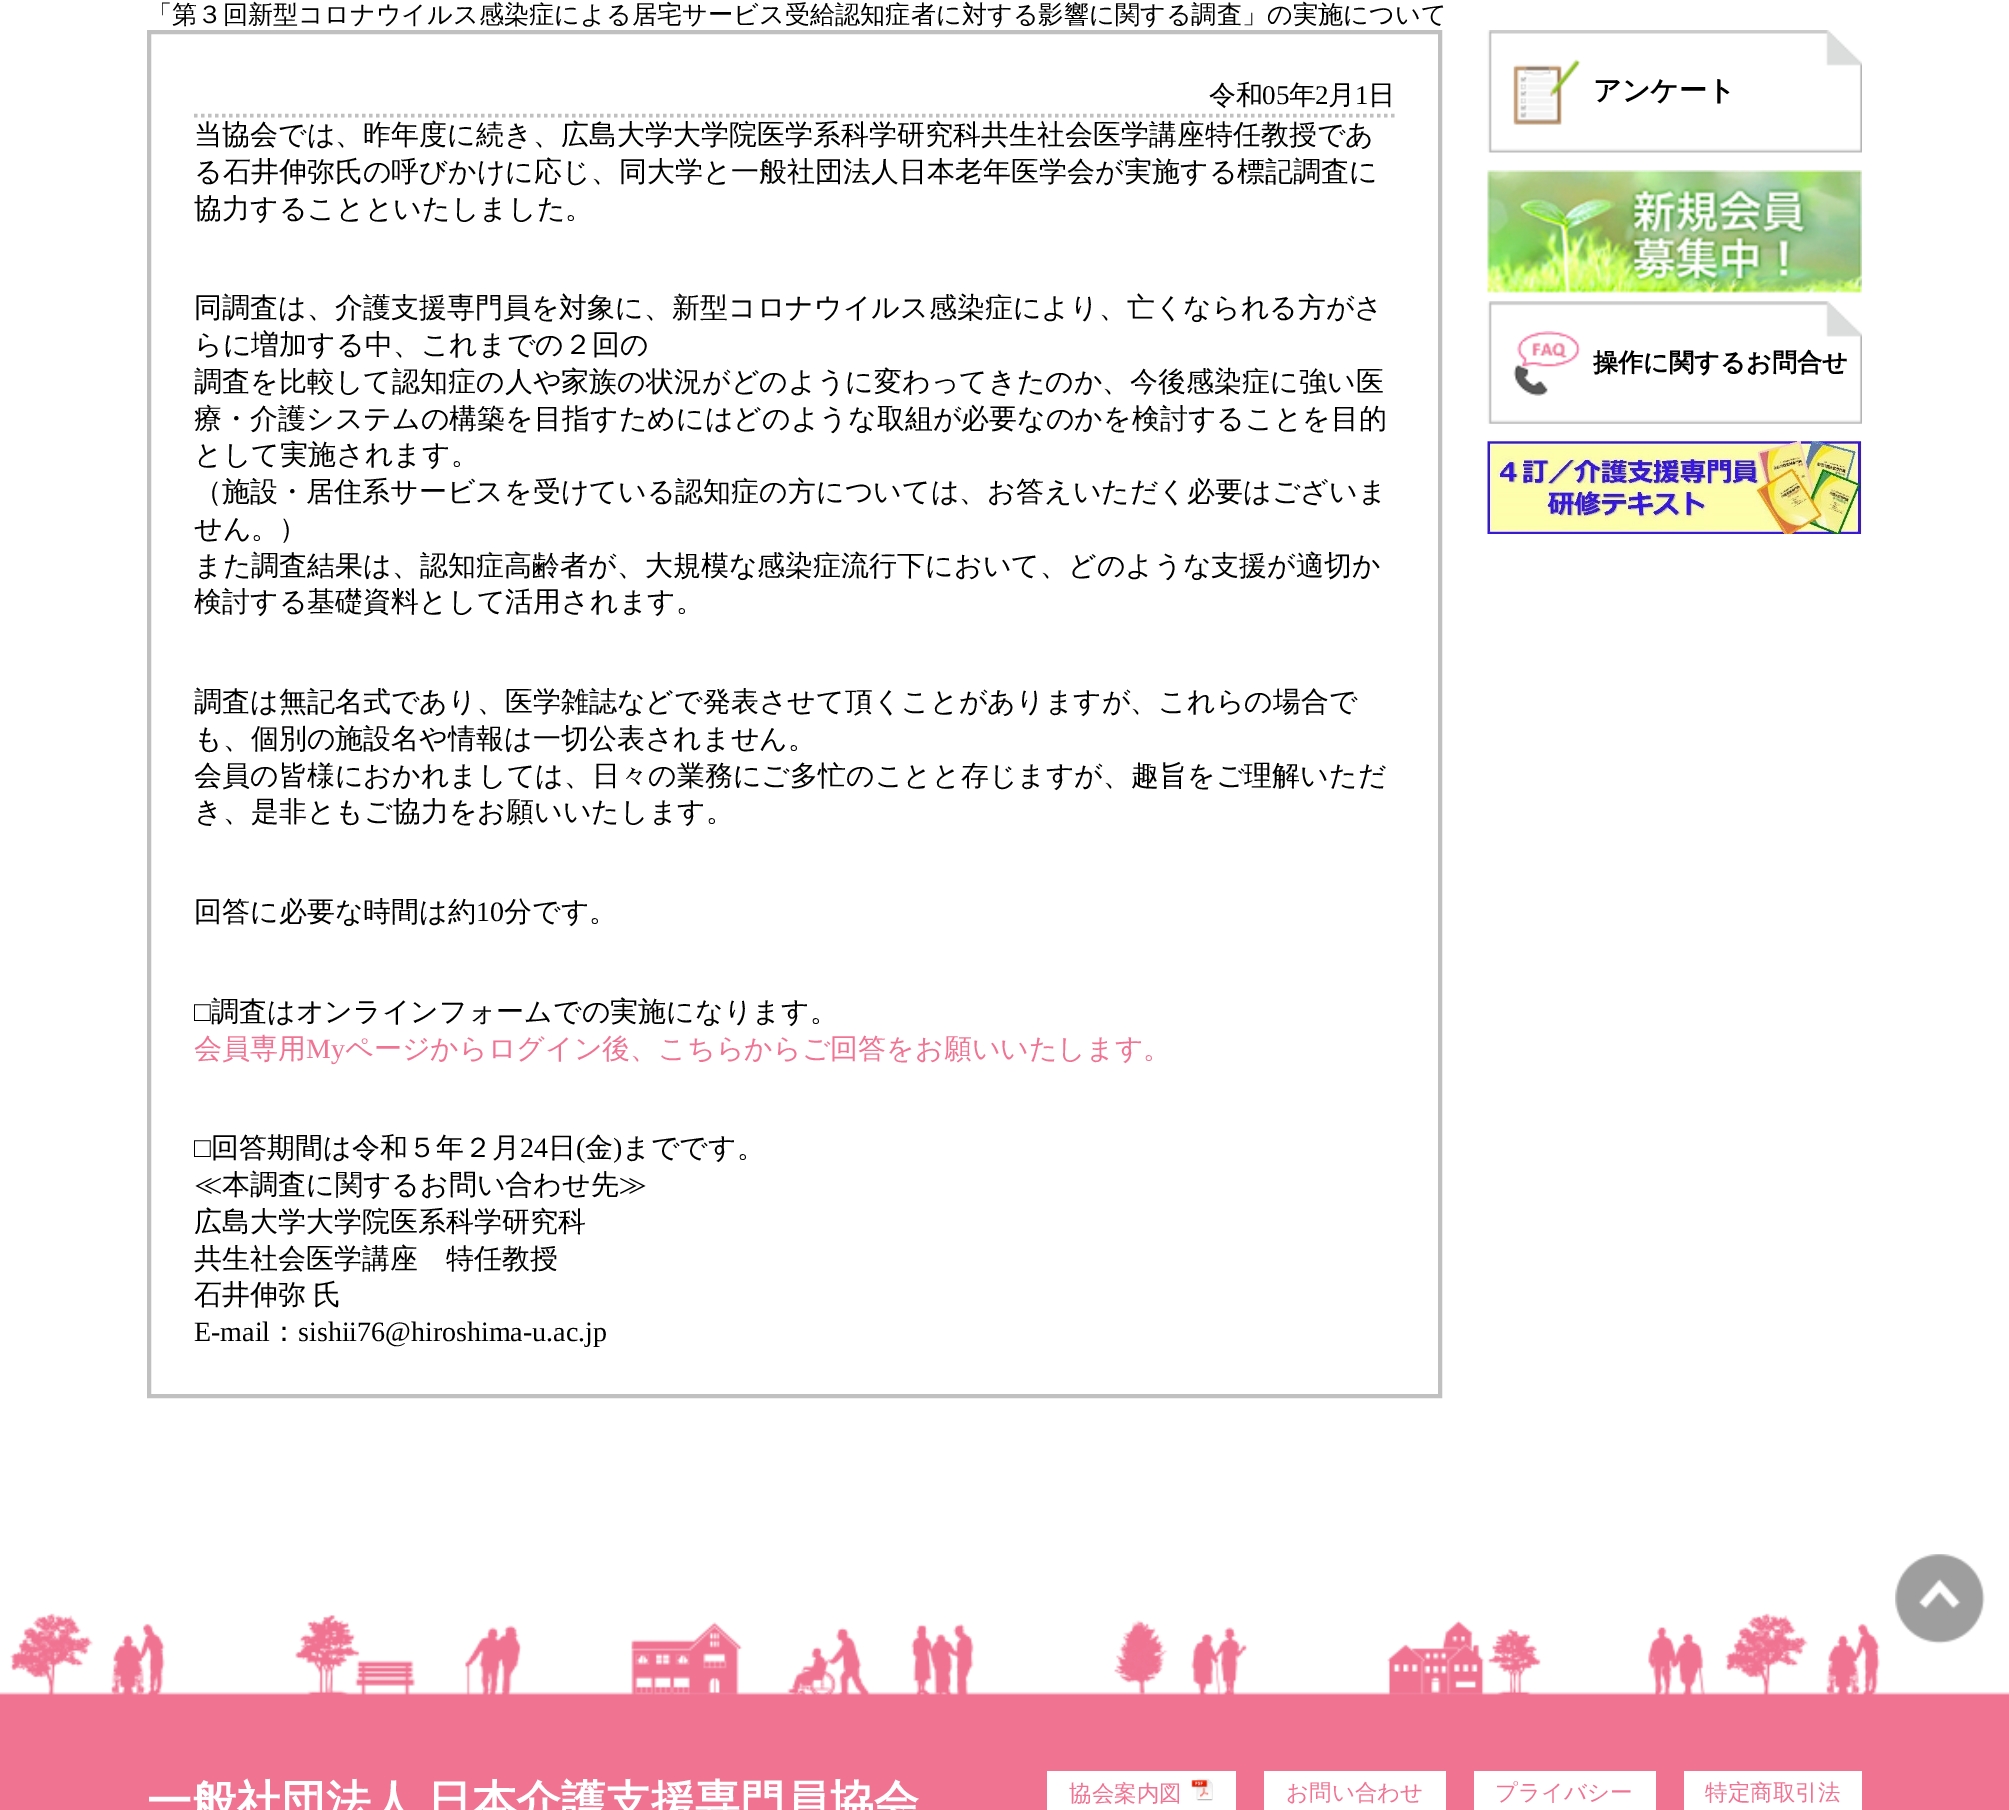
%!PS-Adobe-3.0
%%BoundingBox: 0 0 2009 1810
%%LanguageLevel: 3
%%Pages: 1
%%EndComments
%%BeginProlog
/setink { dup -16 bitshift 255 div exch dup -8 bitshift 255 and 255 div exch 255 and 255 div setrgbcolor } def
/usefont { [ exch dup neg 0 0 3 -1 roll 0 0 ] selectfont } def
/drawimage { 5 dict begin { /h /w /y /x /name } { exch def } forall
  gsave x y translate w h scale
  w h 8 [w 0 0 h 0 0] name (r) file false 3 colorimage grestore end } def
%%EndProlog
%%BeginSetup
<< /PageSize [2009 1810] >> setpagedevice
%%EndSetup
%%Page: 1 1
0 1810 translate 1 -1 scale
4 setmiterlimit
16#FFFFFF setink
0 0 2009 1810 rectfill
/WenQuanYiZenHei-Medium 25.2 usefont
16#000000 setink
147 23 moveto (「第３回新型コロナウイルス感染症による居宅サービス受給認知症者に対する影響に関する調査」の実施について) show
16#C0C0C0 setink
4 setlinewidth
149 32 1291 1364 rectstroke
3.5 setlinewidth
[3.5 3.5] 0 setdash
194 115.5 moveto 1395 115.5 lineto stroke
/WenQuanYiZenHei-Medium 27 usefont
16#000000 setink
1209 104 moveto (令和) show
/LiberationSerif-Regular 27 usefont
1262 104 moveto (05) show
/WenQuanYiZenHei-Medium 27 usefont
1289 104 moveto (年) show
/LiberationSerif-Regular 27 usefont
1315 104 moveto (2) show
/WenQuanYiZenHei-Medium 27 usefont
1328 104 moveto (月) show
/LiberationSerif-Regular 27 usefont
1355 104 moveto (1) show
/WenQuanYiZenHei-Medium 27 usefont
1368 104 moveto (日) show
/WenQuanYiZenHei-Medium 28 usefont
[
    [(当協会では、昨年度に続き、広島大学大学院医学系科学研究科共生社会医学講座特任教授であ) 194 144]
    [(る石井伸弥氏の呼びかけに応じ、同大学と一般社団法人日本老年医学会が実施する標記調査に) 194 181]
    [(協力することといたしました。) 194 218]
    [(同調査は、介護支援専門員を対象に、新型コロナウイルス感染症により、亡くなられる方がさ) 194 317]
    [(らに増加する中、これまでの２回の) 194 354]
    [(調査を比較して認知症の人や家族の状況がどのように変わってきたのか、今後感染症に強い医) 194 391]
    [(療・介護システムの構築を目指すためにはどのような取組が必要なのかを検討することを目的) 194 428]
    [(として実施されます。) 194 464]
    [(（施設・居住系サービスを受けている認知症の方については、お答えいただく必要はございま) 194 501]
    [(せん。）) 194 538]
    [(また調査結果は、認知症高齢者が、大規模な感染症流行下において、どのような支援が適切か) 194 575]
    [(検討する基礎資料として活用されます。) 194 611]
    [(調査は無記名式であり、医学雑誌などで発表させて頂くことがありますが、これらの場合で) 194 711]
    [(も、個別の施設名や情報は一切公表されません。) 194 748]
    [(会員の皆様におかれましては、日々の業務にご多忙のことと存じますが、趣旨をご理解いただ) 194 785]
    [(き、是非ともご協力をお願いいたします。) 194 821]
    [(回答に必要な時間は約) 194 921]
] { aload pop moveto show } forall
/LiberationSerif-Regular 28 usefont
476 921 moveto (10) show
/WenQuanYiZenHei-Medium 28 usefont
504 921 moveto (分です。) show
/LiberationSerif-Regular 28 usefont
194 1021 moveto (□) show
/WenQuanYiZenHei-Medium 28 usefont
211 1021 moveto (調査はオンラインフォームでの実施になります。) show
16#F17393 setink
194 1058 moveto (会員専用) show
/LiberationSerif-Regular 28 usefont
306 1058 moveto (My) show
/WenQuanYiZenHei-Medium 28 usefont
345 1058 moveto (ページからログイン後、こちらからご回答をお願いいたします。) show
/LiberationSerif-Regular 28 usefont
16#000000 setink
194 1157 moveto (□) show
/WenQuanYiZenHei-Medium 28 usefont
211 1157 moveto (回答期間は令和５年２月) show
/LiberationSerif-Regular 28 usefont
520 1157 moveto (24) show
/WenQuanYiZenHei-Medium 28 usefont
548 1157 moveto (日) show
/LiberationSerif-Regular 28 usefont
576 1157 moveto (\() show
/WenQuanYiZenHei-Medium 28 usefont
585 1157 moveto (金) show
/LiberationSerif-Regular 28 usefont
613 1157 moveto (\)) show
/WenQuanYiZenHei-Medium 28 usefont
[
    [(までです。) 622 1157]
    [(≪本調査に関するお問い合わせ先≫) 194 1194]
    [(広島大学大学院医系科学研究科) 194 1231]
    [(共生社会医学講座　特任教授) 194 1268]
] { aload pop moveto show } forall
194 1304 moveto -1 0 32 (石井伸弥 氏) widthshow
/LiberationSerif-Regular 28 usefont
194 1341 moveto (E-mail) show
/WenQuanYiZenHei-Medium 28 usefont
270 1341 moveto (：) show
/LiberationSerif-Regular 28 usefont
298 1341 moveto (sishii76@hiroshima-u.ac.jp) show
(img1.raw) 1487 30 375 123 drawimage
(img2.raw) 1513 59 68 66 drawimage
/WenQuanYiZenHei-Bold 28 usefont
1593 100 moveto (アンケート) show
(img3.raw) 1487 170 375 124 drawimage
(img4.raw) 1487 301 375 123 drawimage
(img5.raw) 1513 331 68 65 drawimage
/WenQuanYiZenHei-Bold 25.2 usefont
1593 371 moveto (操作に関するお問合せ) show
(img6.raw) 1487 441 375 93 drawimage
(img8.raw) 0 1613 2009 197 drawimage
(img7.raw) 1895 1554 90 90 drawimage
/WenQuanYiZenHei-Bold 44.75 usefont
16#FFFFFF setink
147 1817 moveto -2 0 32 (一般社団法人 日本介護支援専門員協会) widthshow
1047 1771 189 39 rectfill
/WenQuanYiZenHei-Medium 22.5 usefont
16#F17393 setink
1069 1801 moveto (協会案内図) show
(img9.raw) 1191 1778 22 23 drawimage
16#FFFFFF setink
1264 1771 182 39 rectfill
16#F17393 setink
1286 1800 moveto (お問い合わせ) show
16#FFFFFF setink
1474 1771 182 39 rectfill
16#F17393 setink
1495 1800 moveto (プライバシー) show
16#FFFFFF setink
1684 1771 178 39 rectfill
16#F17393 setink
1705 1800 moveto (特定商取引法) show
showpage
%%EOF
